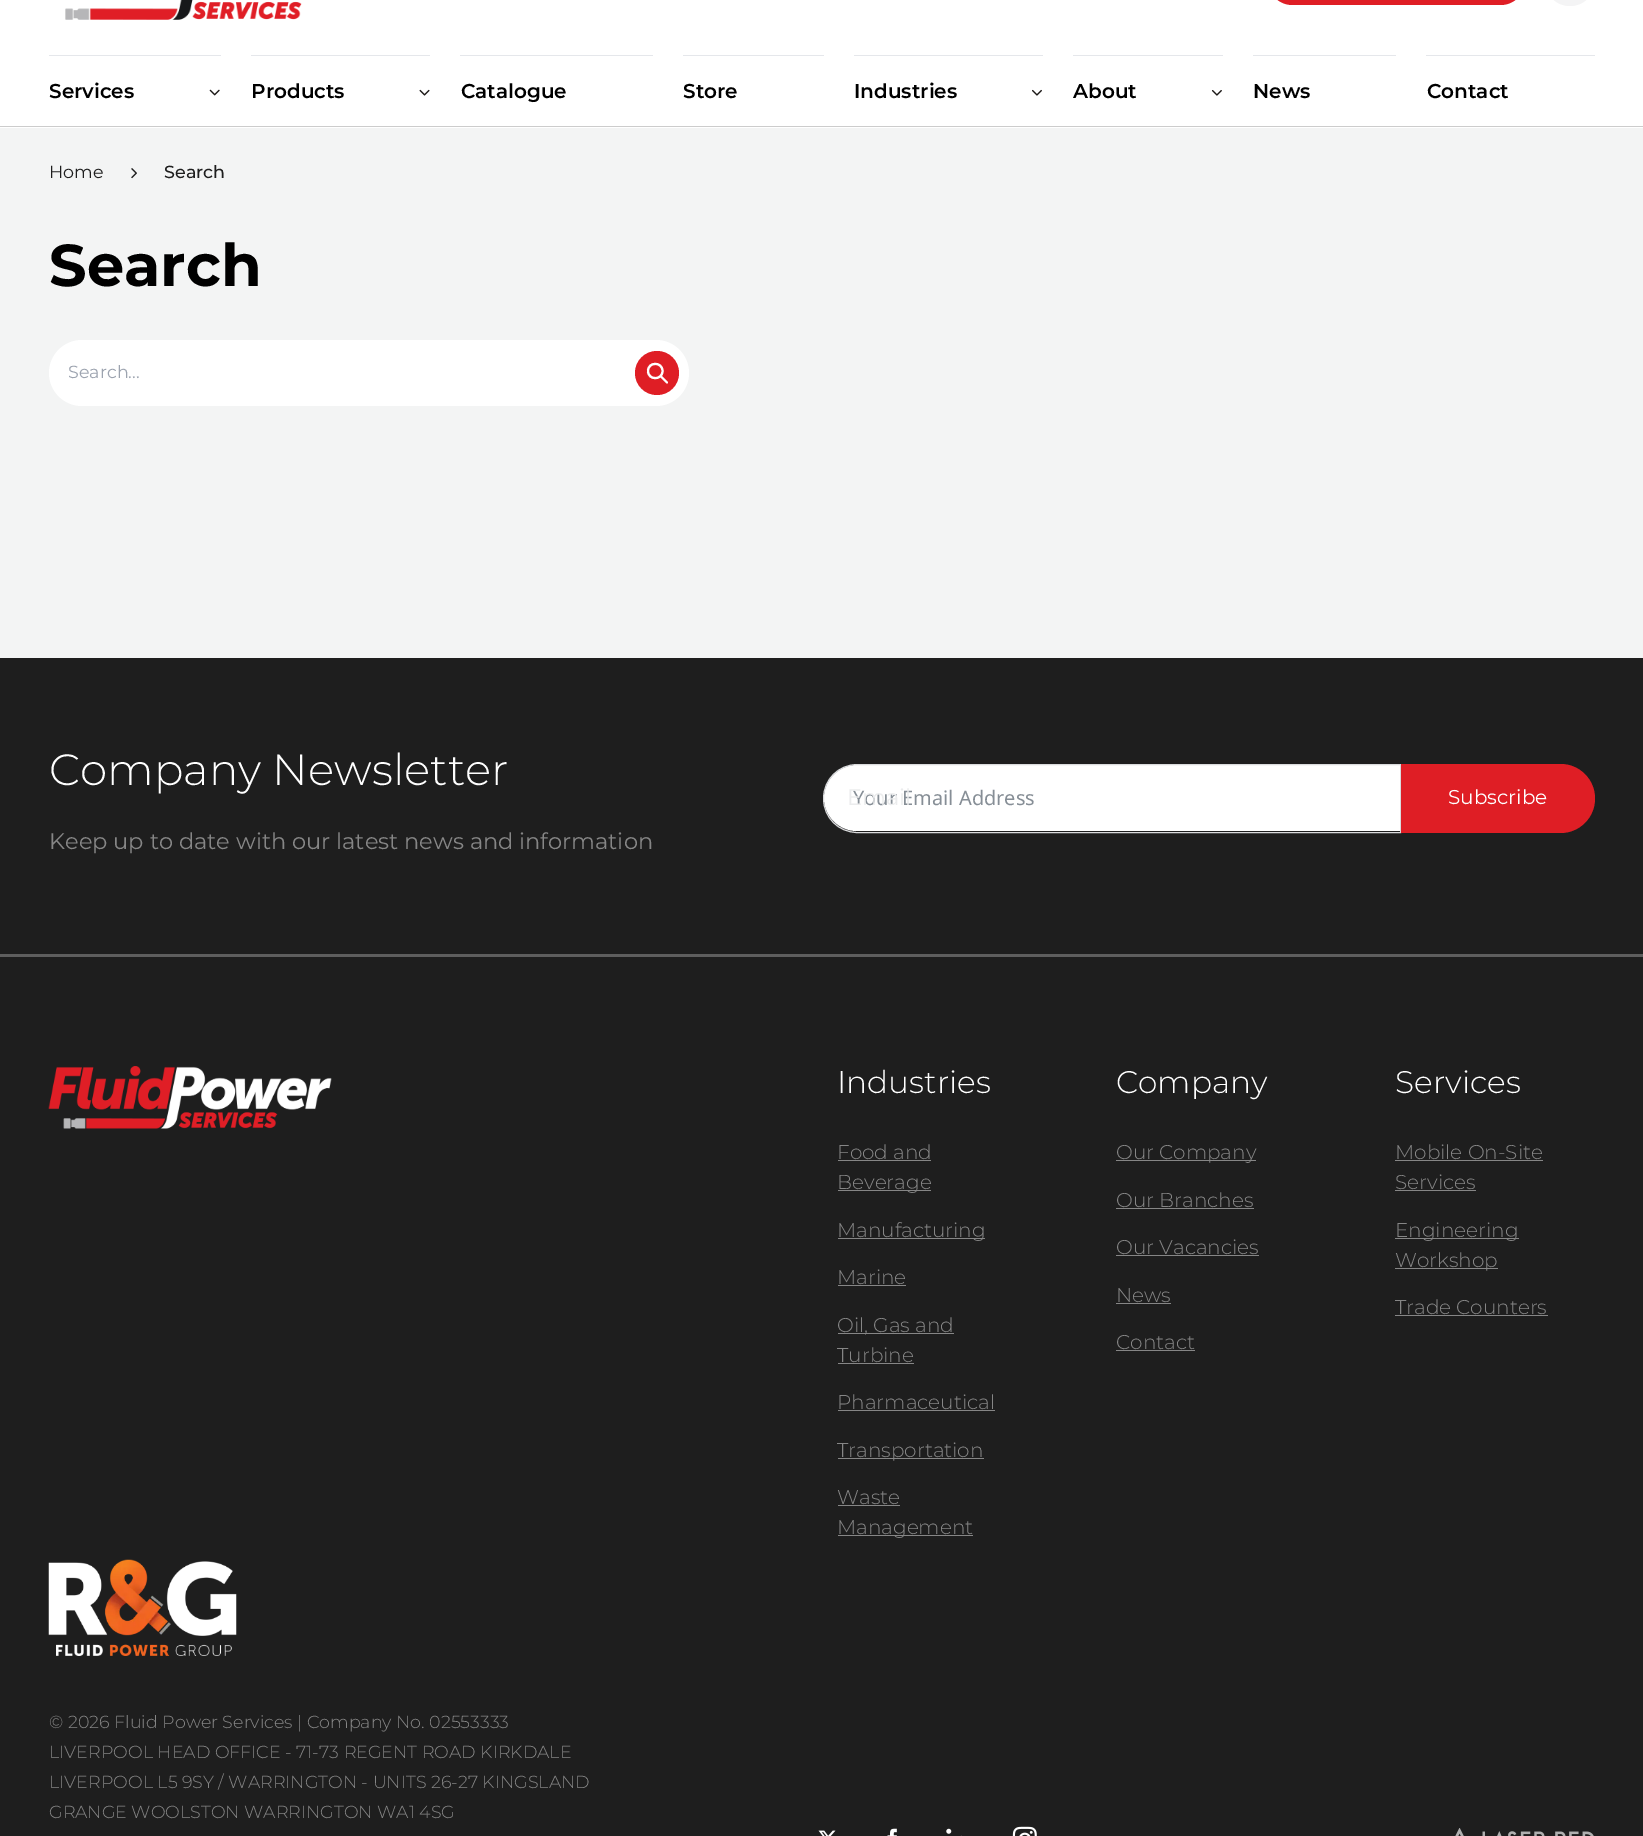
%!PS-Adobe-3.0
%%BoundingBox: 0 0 1643 1836
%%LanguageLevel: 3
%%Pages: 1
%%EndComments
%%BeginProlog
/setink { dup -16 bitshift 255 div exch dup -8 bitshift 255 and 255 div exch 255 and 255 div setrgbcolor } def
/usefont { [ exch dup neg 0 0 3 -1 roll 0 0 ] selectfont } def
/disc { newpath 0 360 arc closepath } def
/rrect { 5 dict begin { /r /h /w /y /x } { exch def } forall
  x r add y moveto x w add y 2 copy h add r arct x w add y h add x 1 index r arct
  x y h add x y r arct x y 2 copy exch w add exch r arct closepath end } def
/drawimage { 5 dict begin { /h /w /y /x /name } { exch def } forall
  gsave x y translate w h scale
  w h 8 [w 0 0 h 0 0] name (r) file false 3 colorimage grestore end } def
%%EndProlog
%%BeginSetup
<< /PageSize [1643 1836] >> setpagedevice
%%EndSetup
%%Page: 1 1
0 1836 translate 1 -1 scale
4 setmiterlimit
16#FFFFFF setink
0 0 1643 1836 rectfill
16#CCCCCC setink
0 126 1643 1 rectfill
16#DF1E25 setink
1268 -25 257 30 24.5 rrect fill
16#F4F4F5 setink
1545 -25 50 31 25 rrect fill
(img1.raw) 65 0 237 20 drawimage
16#E5E7EB setink
49 55 172 1 rectfill
/Montserrat-SemiBold 20 usefont
16#000000 setink
49 98 moveto (Services) show
(img2.raw) 209 89 11 7 drawimage
16#E5E7EB setink
251 55 179 1 rectfill
16#000000 setink
251 98 moveto (Products) show
(img3.raw) 419 89 11 7 drawimage
16#E5E7EB setink
460 55 193 1 rectfill
16#000000 setink
461 98 moveto (Catalogue) show
16#E5E7EB setink
683 55 141 1 rectfill
16#000000 setink
683 98 moveto (Store) show
16#E5E7EB setink
854 55 189 1 rectfill
16#000000 setink
854 98 moveto (Industries) show
(img4.raw) 1032 89 10 7 drawimage
16#E5E7EB setink
1073 55 150 1 rectfill
16#000000 setink
1073 98 moveto (About) show
(img5.raw) 1211 90 11 6 drawimage
16#E5E7EB setink
1253 55 143 1 rectfill
16#000000 setink
1253 98 moveto (News) show
16#E5E7EB setink
1426 55 169 1 rectfill
16#000000 setink
1427 98 moveto (Contact) show
16#F3F4F4 setink
0 128 1643 530 rectfill
/Montserrat-Regular 17.5 usefont
16#1E1E1E setink
49 178 moveto (Home) show
(img6.raw) 131 168 6 11 drawimage
/Montserrat-Medium 17.5 usefont
164 178 moveto (Search) show
/Montserrat-Bold 59 usefont
16#000000 setink
49 286 moveto (Search) show
16#FFFFFF setink
49 340 640 66 33 rrect fill
/Montserrat-Regular 17.5 usefont
16#9CA3AF setink
68 378 moveto (Search...) show
16#DF1E25 setink
657 373 22 disc fill
16#FFFFFF setink
2.1 setlinewidth
1 setlinecap
1 setlinejoin
667 382.5 moveto 660.5 376 lineto 662.5 371 moveto 662.5 380.5 648 380.5 648 371 curveto 648 361.5 662.5 361.5 662.5 371 curveto closepath stroke
16#1E1E1E setink
0 658 1643 1178 rectfill
/Montserrat-Light 43.75 usefont
16#FFFFFF setink
49 785 moveto (Company Newsletter) show
/Montserrat-Regular 22.5 usefont
16#868686 setink
49 849 moveto (Keep up to date with our latest news and information) show
16#FFFFFF setink
857 765 moveto 1400 765 lineto 1400 831 lineto 857 831 lineto 839 831 824 816 824 798 curveto 824 780 839 765 857 765 curveto closepath fill
16#DADBDD setink
1 setlinewidth
0 setlinecap
0 setlinejoin
857.5 764.5 moveto 1400.5 764.5 lineto 1400.5 832.5 lineto 857.5 832.5 lineto 838.5 832.5 823.5 817.5 823.5 798.5 curveto 823.5 779.5 838.5 764.5 857.5 764.5 curveto closepath stroke
/NotoSans-Regular 20 usefont
16#868E96 setink
853 805 moveto (Your Email Address) show
/Montserrat-Regular 22.5 usefont
16#EBECED setink
847 805 moveto (Email) show
16#DF1E25 setink
1401 764 moveto 1560.5 764 lineto 1579.5 764 1595 779.5 1595 798.5 curveto 1595 817.5 1579.5 833 1560.5 833 curveto 1401 833 lineto closepath fill
/Montserrat-Regular 20 usefont
16#FFFFFF setink
1448 804 moveto (Subscribe) show
16#5E5E5E setink
0 954 1643 3 rectfill
(img7.raw) 48 1066 284 63 drawimage
/Montserrat-Light 31.25 usefont
16#FFFFFF setink
837 1093 moveto (Industries) show
/Montserrat-Light 20 usefont
16#868686 setink
837 1159 moveto (Food and) show
838 1160 93 1 rectfill
838 1190 93 1 rectfill
837 1189 moveto (Beverage) show
838 1238 147 1 rectfill
837 1237 moveto (Manufacturing) show
837 1284 moveto (Marine) show
838 1285 68 1 rectfill
838 1333 116 1 rectfill
837 1332 moveto (Oil, Gas and) show
837 1362 moveto (Turbine) show
838 1363 76 1 rectfill
837 1409 moveto (Pharmaceutical) show
838 1410 157 1 rectfill
838 1458 146 1 rectfill
837 1457 moveto (Transportation) show
837 1504 moveto (Waste) show
838 1505 62 1 rectfill
838 1535 135 1 rectfill
837 1534 moveto (Management) show
/Montserrat-Light 31.25 usefont
16#FFFFFF setink
1116 1093 moveto (Company) show
16#868686 setink
1116 1160 140 1 rectfill
/Montserrat-Light 20 usefont
1116 1159 moveto (Our Company) show
1116 1207 moveto (Our Branches) show
1116 1208 138 1 rectfill
1116 1254 moveto (Our Vacancies) show
1116 1255 143 1 rectfill
1116 1302 moveto (News) show
1116 1303 55 1 rectfill
1116 1349 moveto (Contact) show
1116 1350 79 1 rectfill
/Montserrat-Light 31.25 usefont
16#FFFFFF setink
1395 1093 moveto (Services) show
/Montserrat-Light 20 usefont
16#868686 setink
1395 1159 moveto (Mobile On-Site) show
1395 1160 148 1 rectfill
1395 1189 moveto (Services) show
1395 1190 81 1 rectfill
1395 1238 124 1 rectfill
1395 1237 moveto (Engineering) show
1395 1268 103 1 rectfill
1395 1267 moveto (Workshop) show
1395 1314 moveto (Trade Counters) show
1395 1315 153 1 rectfill
(img8.raw) 48 1559 189 97 drawimage
/Montserrat-Light 17.5 usefont
[
    [(© 2026 Fluid Power Services | Company No. 02553333) 49 1728]
    [(LIVERPOOL HEAD OFFICE - 71-73 REGENT ROAD KIRKDALE) 49 1758]
    [(LIVERPOOL L5 9SY / WARRINGTON - UNITS 26-27 KINGSLAND) 49 1788]
    [(GRANGE WOOLSTON WARRINGTON WA1 4SG) 49 1818]
] { aload pop moveto show } forall
(img9.raw) 818 1830 18 6 drawimage
(img10.raw) 887 1828 10 8 drawimage
(img11.raw) 946 1828 16 8 drawimage
(img12.raw) 1012 1826 25 10 drawimage
(img13.raw) 1455 1828 139 8 drawimage
showpage
%%EOF
